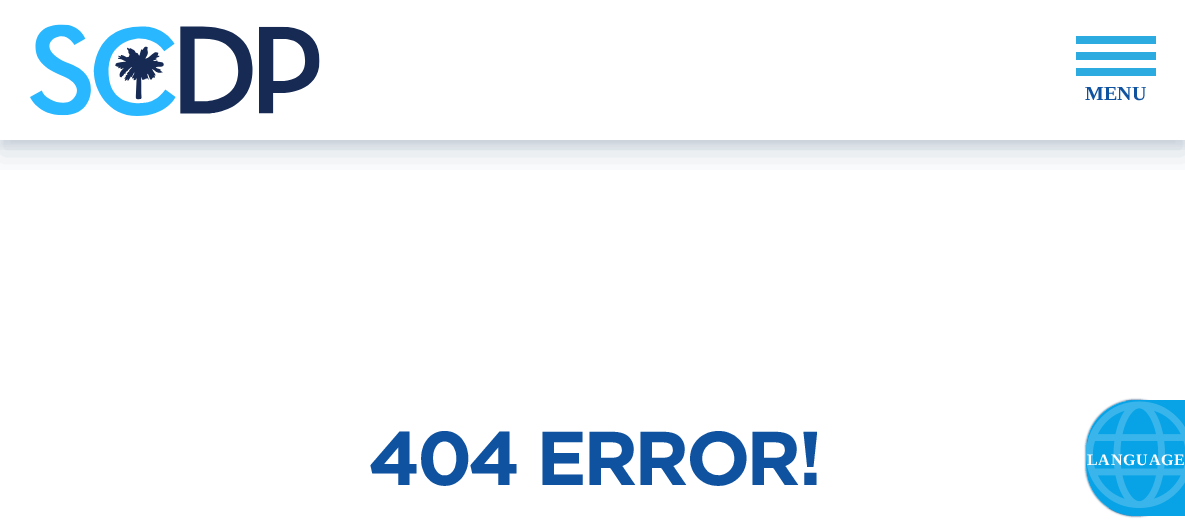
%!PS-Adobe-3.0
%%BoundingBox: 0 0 1185 532
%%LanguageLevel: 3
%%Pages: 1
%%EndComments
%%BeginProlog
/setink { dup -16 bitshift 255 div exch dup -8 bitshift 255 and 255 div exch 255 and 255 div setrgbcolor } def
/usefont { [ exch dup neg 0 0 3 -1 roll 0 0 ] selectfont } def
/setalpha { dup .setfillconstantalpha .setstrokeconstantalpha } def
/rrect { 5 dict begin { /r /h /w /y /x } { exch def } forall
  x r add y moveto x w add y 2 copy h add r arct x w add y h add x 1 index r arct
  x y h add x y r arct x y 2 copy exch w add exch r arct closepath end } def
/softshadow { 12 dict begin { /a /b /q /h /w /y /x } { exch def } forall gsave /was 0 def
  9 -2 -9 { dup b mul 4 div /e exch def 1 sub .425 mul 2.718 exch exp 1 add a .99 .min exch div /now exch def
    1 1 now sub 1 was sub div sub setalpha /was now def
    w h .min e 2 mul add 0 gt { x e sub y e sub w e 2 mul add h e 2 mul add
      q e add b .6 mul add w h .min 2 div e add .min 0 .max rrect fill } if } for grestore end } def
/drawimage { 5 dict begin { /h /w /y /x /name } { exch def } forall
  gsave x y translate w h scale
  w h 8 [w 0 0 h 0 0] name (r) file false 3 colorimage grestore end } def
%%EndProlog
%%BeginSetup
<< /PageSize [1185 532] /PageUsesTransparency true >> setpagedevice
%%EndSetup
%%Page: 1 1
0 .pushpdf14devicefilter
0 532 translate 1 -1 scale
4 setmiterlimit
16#FFFFFF setink
0 0 1185 532 rectfill
gsave
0 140 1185 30 rectclip
16#012957 setink
0 14 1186 140 0 14 0.15 softshadow
grestore
gsave
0 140 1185 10 rectclip
16#012957 setink
0 6 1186 140 0 5 0.1 softshadow
grestore
(img1.raw) 30 24 290 92 drawimage
[
    [1076 36 80 8 16#2CABE1]
    [1076 52 80 8 16#2CABE1]
    [1076 68 80 8 16#2CABE1]
] { aload pop setink rectfill } forall
/LiberationSerif-Bold 20 usefont
16#0F529F setink
1085 100 moveto (MENU) show
/Gotham-Bold 76 usefont
368 485 moveto -3.75 0 (404 ERROR!) ashow
16#012957 setink
1086 400 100 116 50 1 1 softshadow
16#07A3E6 setink
1136 400 moveto 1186 400 lineto 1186 516 lineto 1136 516 lineto 1108.5 516 1086 493.5 1086 466 curveto 1086 450 lineto 1086 422.5 1108.5 400 1136 400 curveto closepath fill
(img2.raw) 1086 401 99 107 drawimage
/LiberationSerif-Bold 16 usefont
16#FFFFFF setink
1087 465 moveto 0.75 0 (LANGUAGE) ashow
.poppdf14devicefilter showpage
%%EOF
